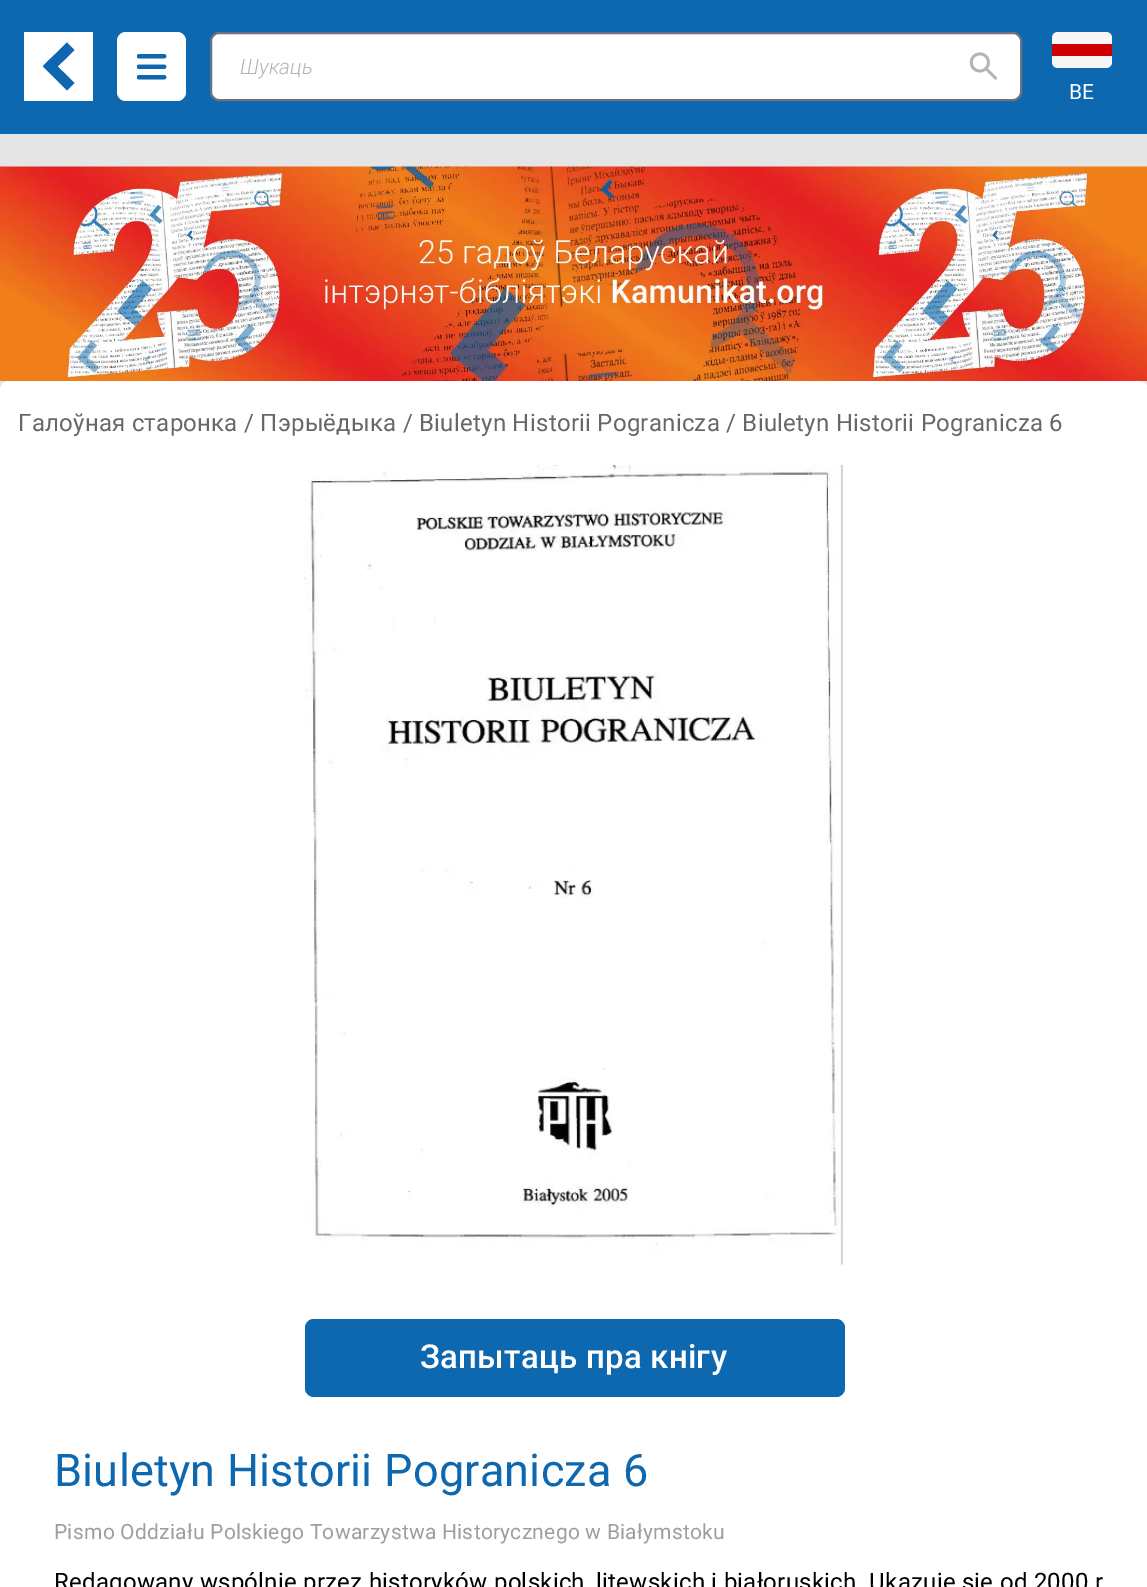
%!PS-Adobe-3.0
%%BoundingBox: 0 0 1147 1587
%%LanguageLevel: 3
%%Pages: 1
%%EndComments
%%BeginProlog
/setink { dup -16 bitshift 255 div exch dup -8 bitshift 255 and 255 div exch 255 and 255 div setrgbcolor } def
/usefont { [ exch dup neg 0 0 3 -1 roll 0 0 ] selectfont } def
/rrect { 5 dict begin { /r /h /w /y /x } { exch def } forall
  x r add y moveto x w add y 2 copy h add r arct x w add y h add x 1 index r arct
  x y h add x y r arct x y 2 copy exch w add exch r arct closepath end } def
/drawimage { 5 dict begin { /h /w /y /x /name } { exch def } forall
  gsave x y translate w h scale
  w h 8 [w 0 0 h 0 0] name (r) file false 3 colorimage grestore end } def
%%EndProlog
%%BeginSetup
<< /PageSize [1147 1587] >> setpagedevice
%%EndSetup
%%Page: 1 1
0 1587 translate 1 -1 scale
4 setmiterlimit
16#E5E5E5 setink
0 0 1147 1587 rectfill
16#0E68B0 setink
0 0 1147 134 rectfill
16#FFFFFF setink
24 32 69 69 rectfill
16#0E67B0 setink
43 66.5 moveto 50 59 lineto 74.5 83 lineto 67 90.5 lineto closepath fill
50.5 73.5 moveto 43 66 lineto 67 42.5 lineto 74.5 50 lineto closepath fill
16#FFFFFF setink
117 32 69 69 9 rrect fill
(img1.raw) 137 54 30 26 drawimage
211 33 810 67 8 rrect gsave fill grestore
16#6B7280 setink
2 setlinewidth
stroke
/Roboto-LightItalic 21 usefont
16#B5B4B4 setink
240 74 moveto (Шукаць) show
(img2.raw) 969 52 28 28 drawimage
16#F7F7F7 setink
1058 32 moveto 1106 32 lineto 1109.5 32 1112 34.5 1112 38 curveto 1112 44 lineto 1052 44 lineto 1052 38 lineto 1052 34.5 1054.5 32 1058 32 curveto closepath fill
1052 56 moveto 1112 56 lineto 1112 62 lineto 1112 65.5 1109.5 68 1106 68 curveto 1058 68 lineto 1054.5 68 1052 65.5 1052 62 curveto closepath fill
16#CC0000 setink
1052 44 60 12 rectfill
/Roboto-Regular 21 usefont
16#FFFFFF setink
1069 99 moveto 0.25 0 (BE) ashow
(img3.raw) 0 166 1147 215 drawimage
0 381 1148 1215 9 rrect fill
/Roboto-Regular 24 usefont
16#676767 setink
18 431 moveto 0.25 0 (Галоўная старонка / Пэрыёдыка / Biuletyn Historii Pogranicza / Biuletyn Historii Pogranicza 6) ashow
(img4.raw) 304 465 539 800 drawimage
16#0E68B0 setink
305 1319 540 78 9 rrect fill
/Roboto-Medium 33 usefont
16#FFFFFF setink
420 1368 moveto 0.25 0 (Запытаць пра кнігу) ashow
/Roboto-Regular 45 usefont
16#0E68B0 setink
54 1486 moveto 0.25 0 (Biuletyn Historii Pogranicza 6) ashow
/Roboto-Regular 21 usefont
16#9E9E9E setink
54 1539 moveto 0.25 0 (Pismo Oddziału Polskiego Towarzystwa Historycznego w Białymstoku) ashow
/Roboto-Regular 24 usefont
16#000000 setink
54 1590 moveto 0.25 0 (Redagowany wspólnie przez historyków polskich, litewskich i białoruskich. Ukazuje się od 2000 r) ashow
showpage
%%EOF
